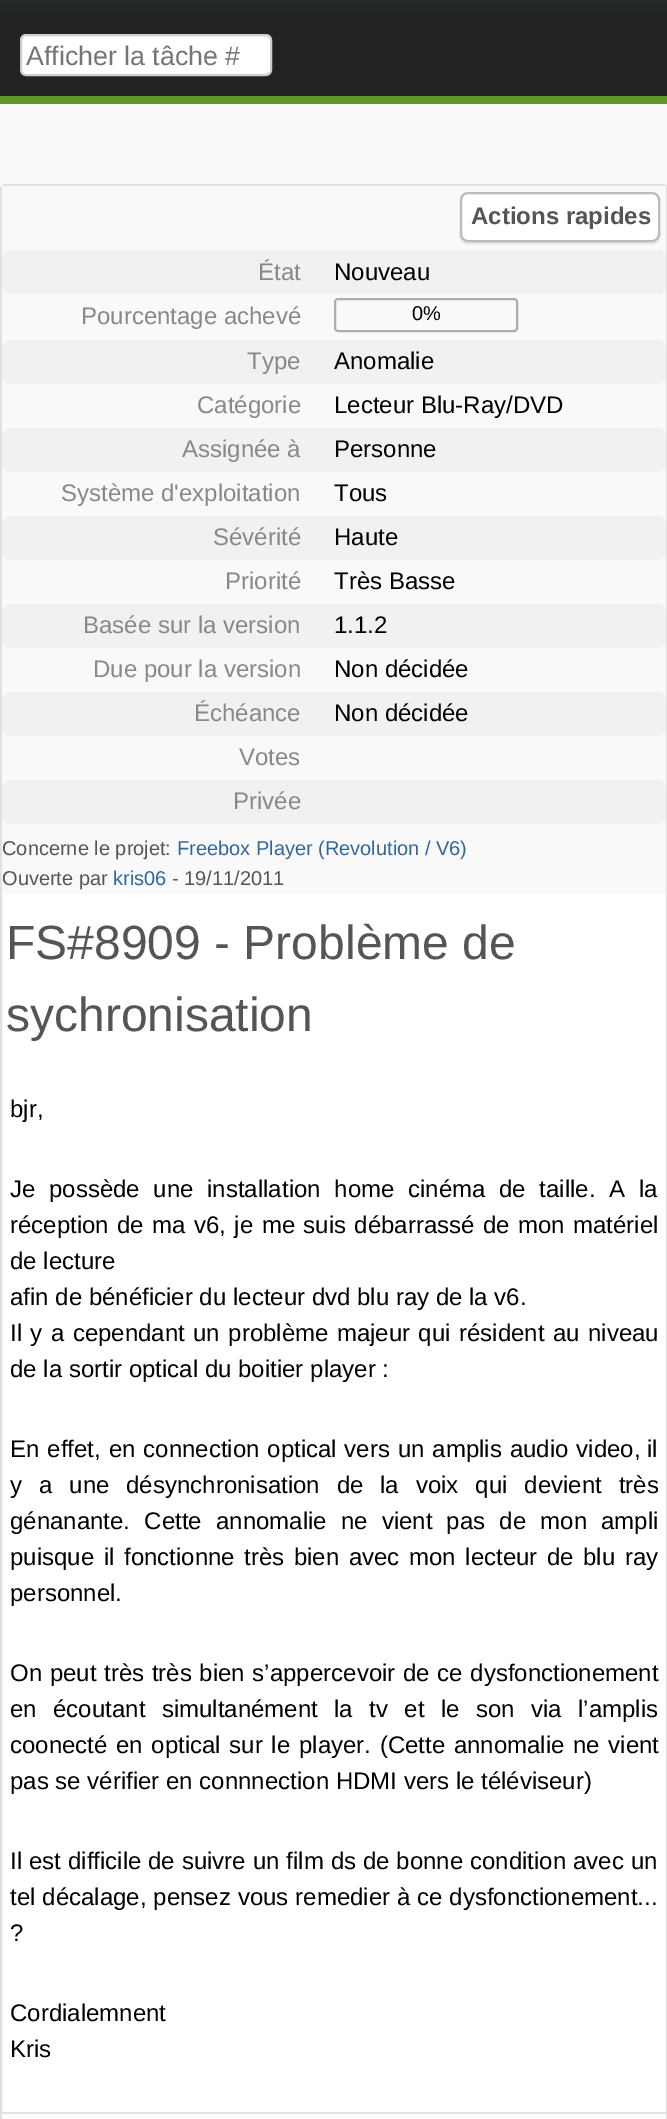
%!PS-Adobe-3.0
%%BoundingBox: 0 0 667 2119
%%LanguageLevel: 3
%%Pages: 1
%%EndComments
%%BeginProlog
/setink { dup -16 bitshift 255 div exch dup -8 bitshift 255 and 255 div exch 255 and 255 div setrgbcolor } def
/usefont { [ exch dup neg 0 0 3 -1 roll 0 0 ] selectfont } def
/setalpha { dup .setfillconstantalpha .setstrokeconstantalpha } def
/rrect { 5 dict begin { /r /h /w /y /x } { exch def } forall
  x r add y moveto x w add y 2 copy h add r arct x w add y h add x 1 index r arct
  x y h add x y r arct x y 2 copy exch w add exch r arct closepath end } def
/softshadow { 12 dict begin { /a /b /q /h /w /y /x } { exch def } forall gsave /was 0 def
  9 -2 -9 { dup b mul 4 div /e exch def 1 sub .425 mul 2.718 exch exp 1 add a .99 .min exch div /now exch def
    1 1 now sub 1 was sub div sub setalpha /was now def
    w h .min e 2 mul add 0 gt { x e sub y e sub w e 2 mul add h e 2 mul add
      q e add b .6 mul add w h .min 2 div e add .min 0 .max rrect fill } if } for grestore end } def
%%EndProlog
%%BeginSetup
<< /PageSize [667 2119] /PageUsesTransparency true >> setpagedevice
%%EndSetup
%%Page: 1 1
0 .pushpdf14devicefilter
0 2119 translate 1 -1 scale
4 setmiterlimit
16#F9F9F9 setink
0 0 667 2119 rectfill
gsave 0 0 moveto 667 0 lineto 667 14 lineto 0 14 lineto closepath clip newpath
<< /ShadingType 2 /ColorSpace /DeviceRGB /Coords [334 -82 334 14] /Extend [true true] /Function << /FunctionType 2 /Domain [0 1] /C0 [0.235 0.251 0.255] /C1 [0.141 0.149 0.153] /N 1 >> >> shfill grestore
16#222222 setink
0 14 667 82 rectfill
16#5F9729 setink
0 96 667 8 rectfill
16#FFFFFF setink
21 35 250 40 5 rrect gsave fill grestore
16#CCCCCC setink
2 setlinewidth
stroke
/LiberationSans-Regular 26.75 usefont
16#757575 setink
26 65 moveto (Afficher la tâche #) show
16#FFFFFF setink
1 185 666 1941 5 rrect gsave fill grestore
16#E1E1E1 setink
stroke
16#F9F9F9 setink
2 186 664 708 rectfill
16#DDDDDD setink
460 194 200 50 8 1 1 softshadow
16#FFFFFF setink
461 193 198 48 7 rrect gsave fill grestore
16#BBBBBB setink
stroke
/LiberationSans-Bold 24 usefont
16#555555 setink
471 224 moveto (Actions rapides) show
16#F1F1F1 setink
2 250 664 44 8 rrect fill
/LiberationSans-Regular 24 usefont
16#888888 setink
258 280 moveto (État) show
16#000000 setink
334 280 moveto (Nouveau) show
16#888888 setink
81 324 moveto (Pourcentage achevé) show
16#AEAEAE setink
335 299 182 32 3 rrect stroke
/LiberationSans-Regular 20 usefont
16#000000 setink
412 320 moveto (0%) show
16#F1F1F1 setink
2 340 664 44 8 rrect fill
/LiberationSans-Regular 24 usefont
16#888888 setink
247 369 moveto (Type) show
16#000000 setink
334 369 moveto (Anomalie) show
16#888888 setink
197 413 moveto (Catégorie) show
16#000000 setink
334 413 moveto (Lecteur Blu-Ray/DVD) show
16#F1F1F1 setink
2 428 664 44 8 rrect fill
16#888888 setink
182 457 moveto (Assignée à) show
16#000000 setink
334 457 moveto (Personne) show
16#888888 setink
61 501 moveto (Système d'exploitation) show
16#000000 setink
334 501 moveto (Tous) show
16#F1F1F1 setink
2 516 664 44 8 rrect fill
16#888888 setink
213 545 moveto (Sévérité) show
16#000000 setink
334 545 moveto (Haute) show
16#888888 setink
225 589 moveto (Priorité) show
16#000000 setink
334 589 moveto (Très Basse) show
16#F1F1F1 setink
2 604 664 44 8 rrect fill
16#888888 setink
83 633 moveto (Basée sur la version) show
16#000000 setink
334 633 moveto (1.1.2) show
16#888888 setink
93 677 moveto (Due pour la version) show
16#000000 setink
334 677 moveto (Non décidée) show
16#F1F1F1 setink
2 692 664 44 8 rrect fill
16#888888 setink
194 721 moveto (Échéance) show
16#000000 setink
334 721 moveto (Non décidée) show
16#888888 setink
239 765 moveto (Votes) show
16#F1F1F1 setink
2 780 664 44 8 rrect fill
16#888888 setink
233 809 moveto (Privée) show
/LiberationSans-Regular 20 usefont
16#555555 setink
2 855 moveto (Concerne le projet:) show
16#336699 setink
177 855 moveto (Freebox Player \(Revolution / V6\)) show
16#555555 setink
2 885 moveto (Ouverte par) show
16#336699 setink
113 885 moveto (kris06) show
16#555555 setink
172 885 moveto (- 19/11/2011) show
/LiberationSans-Regular 48 usefont
6 959 moveto (FS#8909 - Problème de) show
6 1031 moveto (sychronisation) show
/LiberationSans-Regular 24 usefont
16#000000 setink
10 1117 moveto (bjr,) show
10 1197 moveto 7 0 32 (Je possède une installation home cinéma de taille. A la) widthshow
10 1233 moveto 1.75 0 32 (réception de ma v6, je me suis débarrassé de mon matériel) widthshow
10 1269 moveto (de lecture) show
10 1305 moveto (afin de bénéficier du lecteur dvd blu ray de la v6.) show
10 1341 moveto 1.75 0 32 (Il y a cependant un problème majeur qui résident au niveau) widthshow
10 1377 moveto (de la sortir optical du boitier player :) show
10 1457 moveto 1.25 0 32 (En effet, en connection optical vers un amplis audio video,) widthshow
647 1457 moveto (il) show
10 1493 moveto 10.25 0 32 (y a une désynchronisation de la voix qui devient très) widthshow
10 1529 moveto 7.5 0 32 (génanante. Cette annomalie ne vient pas de mon ampli) widthshow
10 1565 moveto 2.9 0 32 (puisque il fonctionne très bien avec mon lecteur de blu ray) widthshow
10 1601 moveto (personnel.) show
10 1681 moveto 1 0 32 (On peut très très bien s’appercevoir) widthshow
403 1681 moveto 1 0 32 (de ce dysfonctionement) widthshow
10 1717 moveto 9.75 0 32 (en écoutant simultanément la tv et le son via l’amplis) widthshow
10 1753 moveto 2 0 32 (coonecté en optical sur le player. \(Cette annomalie ne vient) widthshow
10 1789 moveto (pas se vérifier en connnection HDMI vers le téléviseur\)) show
10 1869 moveto 0.25 0 32 (Il est difficile de suivre un film ds de bonne condition avec un) widthshow
10 1905 moveto 0.25 0 32 (tel décalage, pensez vous remedier à ce dysfonctionement...) widthshow
[
    [(?) 10 1941]
    [(Cordialemnent) 10 2021]
    [(Kris) 10 2057]
] { aload pop moveto show } forall
16#E1E1E1 setink
2 2112 664 2 rectfill
.poppdf14devicefilter showpage
%%EOF
